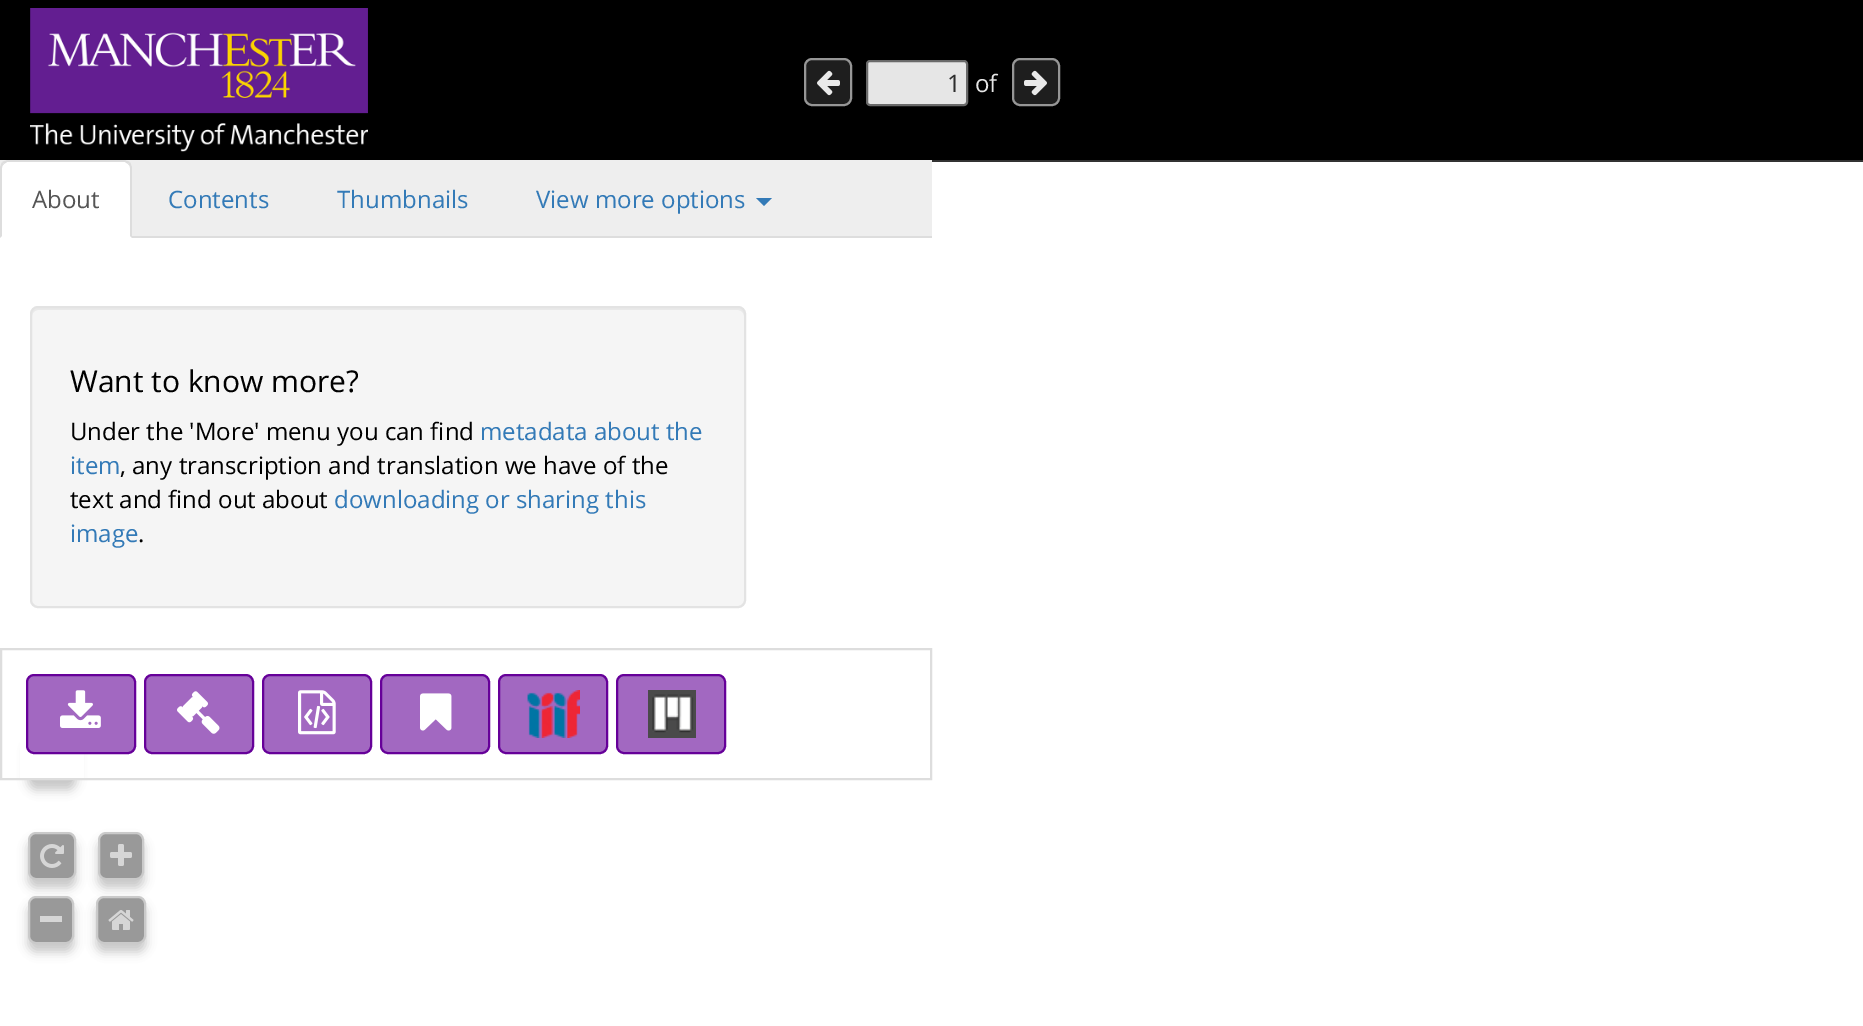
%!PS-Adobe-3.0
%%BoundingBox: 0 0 1863 1026
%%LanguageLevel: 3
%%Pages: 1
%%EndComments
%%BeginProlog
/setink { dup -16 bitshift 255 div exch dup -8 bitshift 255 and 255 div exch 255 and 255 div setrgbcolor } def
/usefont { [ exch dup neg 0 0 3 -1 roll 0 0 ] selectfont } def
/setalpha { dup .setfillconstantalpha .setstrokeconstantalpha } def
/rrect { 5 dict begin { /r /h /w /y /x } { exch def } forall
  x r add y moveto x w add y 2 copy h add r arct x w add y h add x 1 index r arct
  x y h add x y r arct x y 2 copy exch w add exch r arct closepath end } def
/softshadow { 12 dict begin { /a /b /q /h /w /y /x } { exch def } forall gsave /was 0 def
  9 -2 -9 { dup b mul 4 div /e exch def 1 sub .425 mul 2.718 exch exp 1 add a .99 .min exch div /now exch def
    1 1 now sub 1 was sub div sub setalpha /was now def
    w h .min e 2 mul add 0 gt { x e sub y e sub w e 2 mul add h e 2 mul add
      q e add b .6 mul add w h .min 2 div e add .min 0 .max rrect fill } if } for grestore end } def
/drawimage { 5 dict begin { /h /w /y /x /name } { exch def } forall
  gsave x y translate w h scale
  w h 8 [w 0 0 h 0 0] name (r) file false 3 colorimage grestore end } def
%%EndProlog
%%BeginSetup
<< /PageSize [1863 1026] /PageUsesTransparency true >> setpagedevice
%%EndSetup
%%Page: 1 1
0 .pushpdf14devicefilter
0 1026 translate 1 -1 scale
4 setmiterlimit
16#FFFFFF setink
0 0 1863 1026 rectfill
16#000000 setink
0 0 1863 160 rectfill
16#333333 setink
932 160 931 2 rectfill
(img1.raw) 30 8 338 144 drawimage
16#1E1E1E setink
805 59 46 46 7 rrect gsave fill grestore
16#969696 setink
2 setlinewidth
stroke
(img2.raw) 817 70 23 26 drawimage
16#E6E6E6 setink
867 61 100 44 3 rrect gsave fill grestore
16#6A6A6A setink
stroke
/OpenSans-Regular 24 usefont
16#2E2E2E setink
947 92 moveto (1) show
16#E6E6E6 setink
975 92 moveto (of) show
16#1E1E1E setink
1013 59 46 46 7 rrect gsave fill grestore
16#969696 setink
stroke
(img3.raw) 1024 70 23 26 drawimage
16#EEEEEE setink
0 160 932 76 rectfill
16#DDDDDD setink
132 236 800 2 rectfill
16#FFFFFF setink
8 160 moveto 124 160 lineto 128.5 160 132 163.5 132 168 curveto 132 238 lineto 0 238 lineto 0 168 lineto 0 163.5 3.5 160 8 160 curveto closepath fill
16#DDDDDD setink
8 160 moveto 6 160 4 161 2 162 curveto 4 164 lineto 7 162 lineto 125 162 lineto 128 164 lineto 130 162 lineto 128 161 126 160 124 160 curveto closepath fill
132 238 moveto 132 168 lineto 132 166 131 164 130 162 curveto 128 164 lineto 129 165 130 166 130 168 curveto 130 236 lineto closepath fill
0 238 moveto 2 236 lineto 2 168 lineto 2 166 3 165 4 164 curveto 2 162 lineto 1 164 0 166 0 168 curveto closepath fill
16#555555 setink
32 208 moveto (About) show
16#337AB7 setink
[
    [(Contents) 168 208]
    [(Thumbnails) 337 208]
    [(View more options) 536 208]
] { aload pop moveto show } forall
756 198 moveto 772 198 lineto 764 206 lineto closepath fill
16#F5F5F5 setink
30 306 716 302 8 rrect fill
16#E9E9E9 setink
38 310 moveto 738 310 lineto 741 310 744 313 744 316 curveto 744 314 lineto 744 311 741 308 738 308 curveto 38 308 lineto 35 308 32 311 32 314 curveto 32 316 lineto 32 313 35 310 38 310 curveto closepath fill
16#E3E3E3 setink
31 307 714 300 7 rrect stroke
/OpenSans-Regular 30 usefont
16#000000 setink
70 392 moveto (Want to know more?) show
/OpenSans-Regular 24 usefont
70 440 moveto (Under the 'More' menu you can find) show
16#337AB7 setink
480 440 moveto (metadata about the) show
70 474 moveto (item) show
16#000000 setink
120 474 moveto (, any transcription and translation we have of the) show
70 508 moveto (text and find out about) show
16#337AB7 setink
334 508 moveto (downloading or sharing this) show
70 542 moveto (image) show
16#000000 setink
138 542 moveto (.) show
16#666666 setink
28 742 48 48 8 5 0.35 softshadow
16#CACACA setink
29 735 46 46 7 rrect stroke
16#FFFFFF setink
20 734 64 44 rectfill
16#DDDDDD setink
1 649 930 130 rectstroke
16#A268C1 setink
27 675 108 78 7 rrect gsave fill grestore
16#660099 setink
stroke
(img4.raw) 60 690 41 38 drawimage
16#A268C1 setink
145 675 108 78 7 rrect gsave fill grestore
16#660099 setink
stroke
(img5.raw) 177 691 43 43 drawimage
16#A268C1 setink
263 675 108 78 7 rrect gsave fill grestore
16#660099 setink
stroke
(img6.raw) 298 690 38 45 drawimage
16#A268C1 setink
381 675 108 78 7 rrect gsave fill grestore
16#660099 setink
stroke
(img7.raw) 420 693 32 38 drawimage
16#A268C1 setink
499 675 108 78 7 rrect gsave fill grestore
16#660099 setink
stroke
(img8.raw) 527 690 53 48 drawimage
16#A268C1 setink
617 675 108 78 7 rrect gsave fill grestore
16#660099 setink
stroke
(img9.raw) 648 690 48 48 drawimage
gsave
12 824 moveto 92 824 lineto 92 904 lineto 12 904 lineto closepath 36 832 moveto 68 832 lineto 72.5 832 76 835.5 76 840 curveto 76 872 lineto 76 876.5 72.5 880 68 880 curveto 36 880 lineto 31.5 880 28 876.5 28 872 curveto 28 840 lineto 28 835.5 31.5 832 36 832 curveto closepath eoclip newpath
16#666666 setink
28 840 48 48 8 5 0.35 softshadow
grestore
0.8 setalpha
16#7F7F7F setink
29 833 46 46 7 rrect fill
1 setalpha
16#CACACA setink
29 833 46 46 7 rrect stroke
(img10.raw) 40 844 24 24 drawimage
gsave
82 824 moveto 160 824 lineto 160 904 lineto 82 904 lineto closepath 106 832 moveto 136 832 lineto 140.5 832 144 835.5 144 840 curveto 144 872 lineto 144 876.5 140.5 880 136 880 curveto 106 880 lineto 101.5 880 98 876.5 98 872 curveto 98 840 lineto 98 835.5 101.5 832 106 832 curveto closepath eoclip newpath
16#666666 setink
98 840 46 48 8 5 0.35 softshadow
grestore
0.8 setalpha
16#7F7F7F setink
99 833 44 46 7 rrect fill
1 setalpha
16#CACACA setink
99 833 44 46 7 rrect stroke
(img11.raw) 110 844 22 22 drawimage
gsave
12 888 moveto 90 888 lineto 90 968 lineto 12 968 lineto closepath 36 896 moveto 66 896 lineto 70.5 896 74 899.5 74 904 curveto 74 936 lineto 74 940.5 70.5 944 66 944 curveto 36 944 lineto 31.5 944 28 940.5 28 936 curveto 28 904 lineto 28 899.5 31.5 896 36 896 curveto closepath eoclip newpath
16#666666 setink
28 904 46 48 8 5 0.35 softshadow
grestore
0.8 setalpha
16#7F7F7F setink
29 897 44 46 7 rrect fill
1 setalpha
16#CACACA setink
29 897 44 46 7 rrect stroke
16#D6D6D6 setink
40 916 22 6 rectfill
gsave
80 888 moveto 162 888 lineto 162 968 lineto 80 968 lineto closepath 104 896 moveto 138 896 lineto 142.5 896 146 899.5 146 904 curveto 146 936 lineto 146 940.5 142.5 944 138 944 curveto 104 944 lineto 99.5 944 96 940.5 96 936 curveto 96 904 lineto 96 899.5 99.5 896 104 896 curveto closepath eoclip newpath
16#666666 setink
96 904 50 48 8 5 0.35 softshadow
grestore
0.8 setalpha
16#7F7F7F setink
97 897 48 46 7 rrect fill
1 setalpha
16#CACACA setink
97 897 48 46 7 rrect stroke
(img12.raw) 108 910 26 20 drawimage
.poppdf14devicefilter showpage
%%EOF
